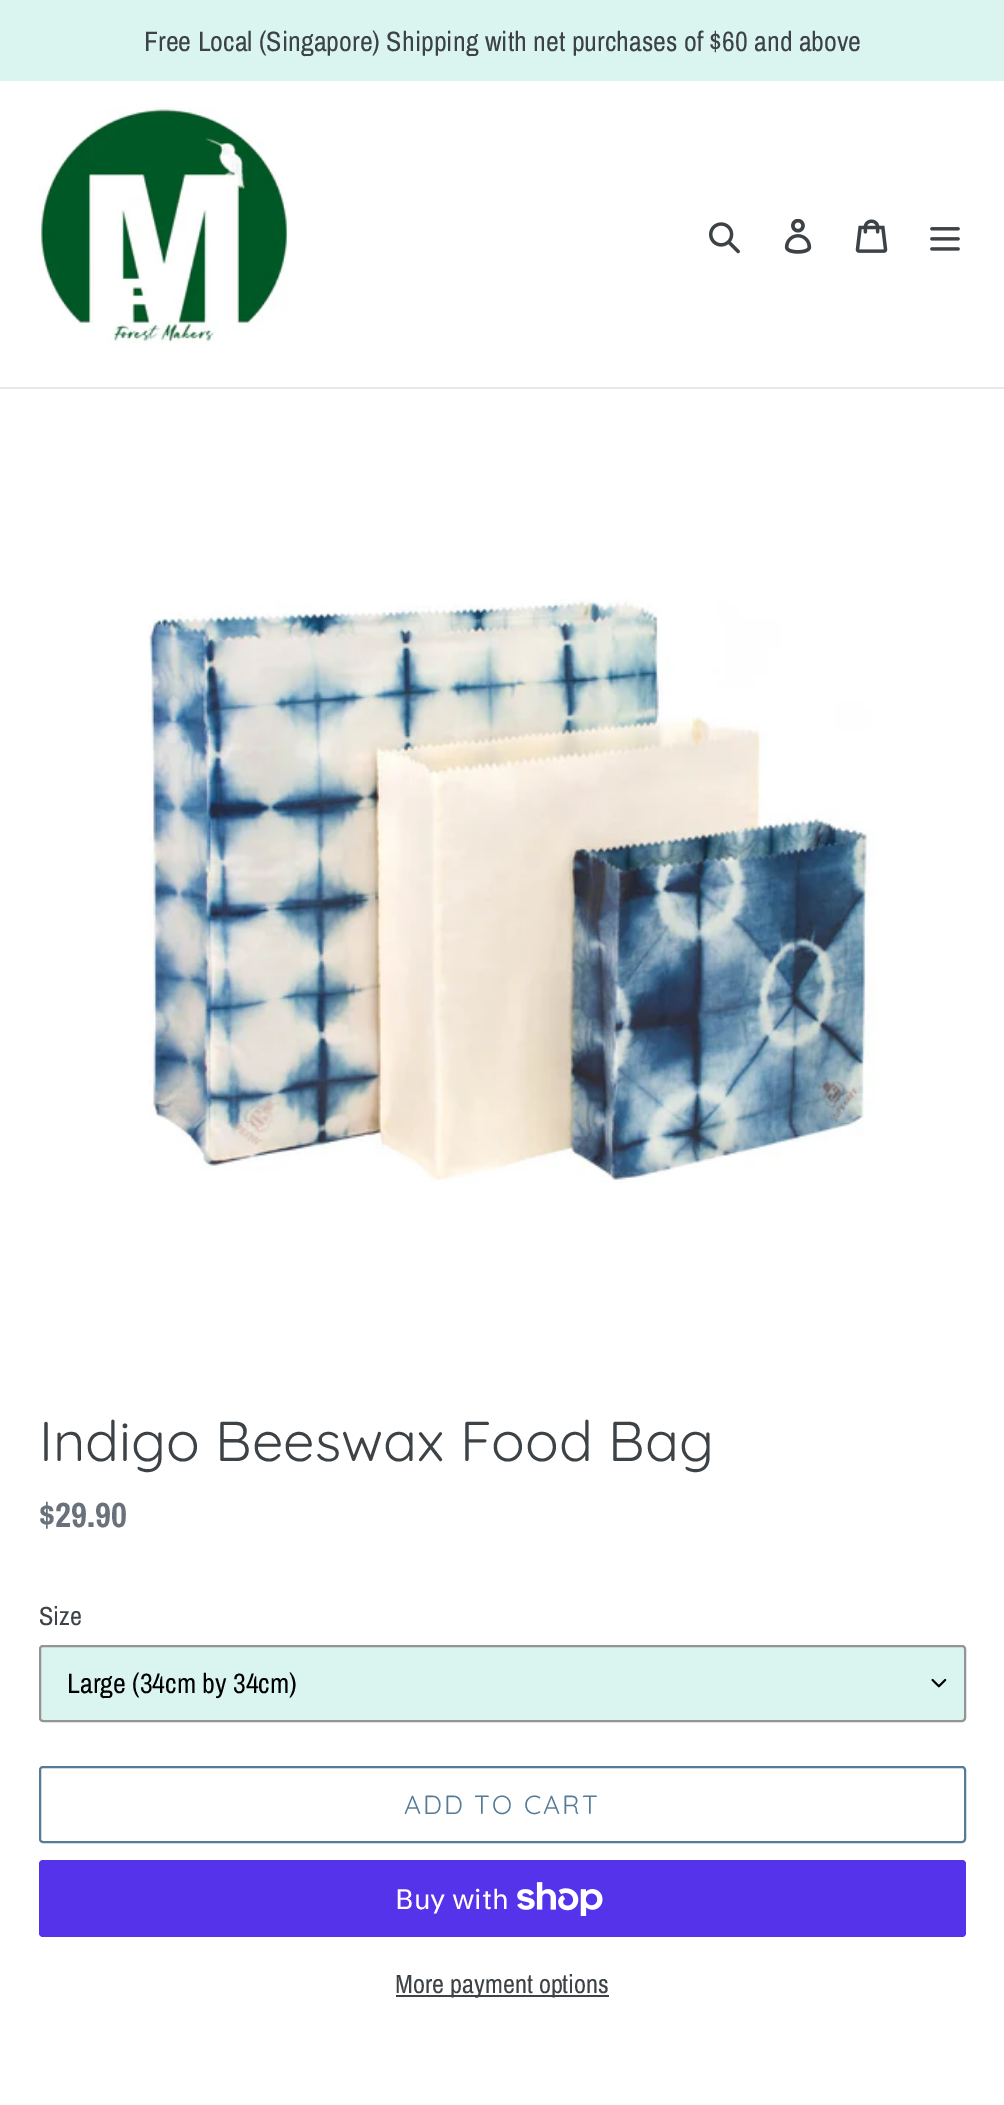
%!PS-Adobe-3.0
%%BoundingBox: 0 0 1004 2105
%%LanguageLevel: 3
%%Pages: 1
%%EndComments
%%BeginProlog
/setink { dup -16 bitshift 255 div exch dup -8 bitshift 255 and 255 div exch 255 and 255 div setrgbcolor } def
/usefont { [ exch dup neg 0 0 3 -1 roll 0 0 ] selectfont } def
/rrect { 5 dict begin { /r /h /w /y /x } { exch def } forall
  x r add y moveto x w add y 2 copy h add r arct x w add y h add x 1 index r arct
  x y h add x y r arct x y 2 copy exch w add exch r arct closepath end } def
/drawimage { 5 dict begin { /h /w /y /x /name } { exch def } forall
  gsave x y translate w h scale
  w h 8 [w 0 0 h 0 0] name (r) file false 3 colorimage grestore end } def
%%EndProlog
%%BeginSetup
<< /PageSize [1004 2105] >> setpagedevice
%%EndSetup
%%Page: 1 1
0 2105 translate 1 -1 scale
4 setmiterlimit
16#FFFFFF setink
0 0 1004 2105 rectfill
16#DAF5EF setink
0 0 1004 81 rectfill
/ArchivoNarrow-Regular 28 usefont
16#3D4246 setink
144 51 moveto (Free Local \(Singapore\) Shipping with net purchases of $60 and above) show
16#E8E9EB setink
0 387 1004 2 rectfill
(img1.raw) 38 107 250 237 drawimage
(img2.raw) 709 222 31 32 drawimage
(img3.raw) 784 219 28 35 drawimage
(img4.raw) 855 219 33 34 drawimage
(img5.raw) 930 227 30 24 drawimage
(img6.raw) 148 599 728 584 drawimage
/Quicksand-Regular 56 usefont
16#3D4246 setink
39 1461 moveto (Indigo Beeswax Food Bag) show
/ArchivoNarrow-Bold 35 usefont
16#69727B setink
39 1527 moveto ($29.90) show
/ArchivoNarrow-Regular 26.25 usefont
16#3D4246 setink
39 1625 moveto (Size) show
16#DAF5EF setink
39 1645 927 77 4 rrect fill
(img7.raw) 931 1678 16 10 drawimage
16#949494 setink
2 setlinewidth
40 1646 925 75 3 rrect stroke
/ArchivoNarrow-Regular 28 usefont
16#000000 setink
67 1693 moveto (Large \(34cm by 34cm\)) show
16#557B97 setink
40 1767 925 75 3 rrect stroke
/Quicksand-Regular 26.25 usefont
404 1814 moveto 2.1 0 (ADD TO CART) ashow
16#5433EB setink
39 1860 927 77 4 rrect fill
/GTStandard-Regular 28 usefont
16#FFFFFF setink
395 1909 moveto (Buy with) show
(img8.raw) 517 1882 86 34 drawimage
16#3D4246 setink
396 1995 213 2 rectfill
/ArchivoNarrow-Regular 26.25 usefont
395 1993 moveto (More payment options) show
showpage
%%EOF
